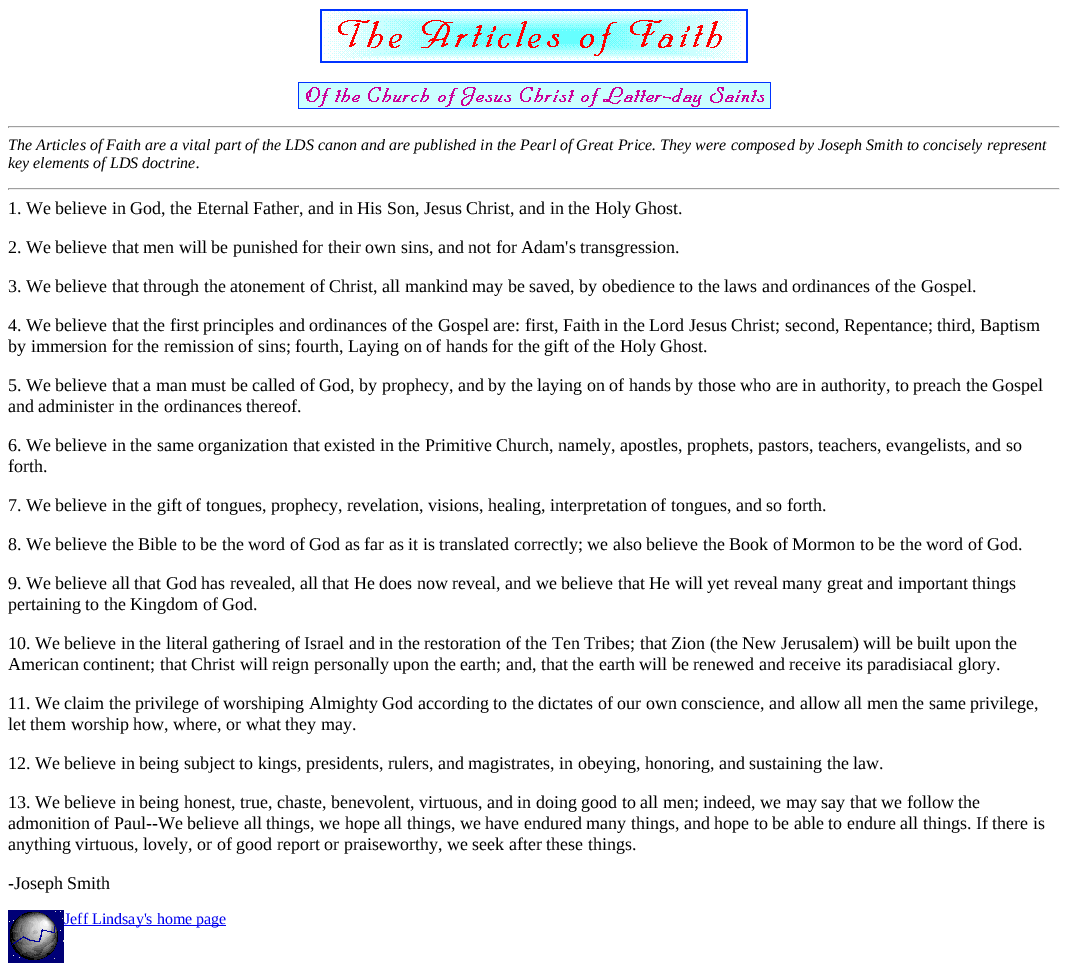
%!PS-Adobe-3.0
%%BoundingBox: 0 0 1068 971
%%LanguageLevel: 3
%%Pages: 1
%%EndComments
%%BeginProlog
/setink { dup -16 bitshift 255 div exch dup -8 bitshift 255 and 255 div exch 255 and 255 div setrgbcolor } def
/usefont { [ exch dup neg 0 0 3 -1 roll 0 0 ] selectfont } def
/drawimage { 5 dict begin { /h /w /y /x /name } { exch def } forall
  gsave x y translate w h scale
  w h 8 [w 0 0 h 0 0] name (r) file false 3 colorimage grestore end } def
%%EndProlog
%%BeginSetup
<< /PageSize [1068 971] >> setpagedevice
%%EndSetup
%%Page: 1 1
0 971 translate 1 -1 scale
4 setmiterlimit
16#FFFFFF setink
0 0 1068 971 rectfill
(img1.raw) 320 9 428 54 drawimage
(img2.raw) 298 82 473 27 drawimage
[
    [8 126 1052 1 16#9F9F9F]
    [1059 126 1 2 16#EEEEEE]
    [8 127 1052 1 16#EEEEEE]
    [8 126 1 2 16#9F9F9F]
] { aload pop setink rectfill } forall
/LiberationSerif-Italic 16 usefont
16#000000 setink
8 150 moveto (The Articles of Faith are a vital part of the LDS canon and are published in the Pearl of Great Price. They were composed by Joseph Smith to concisely represent) show
8 168 moveto (key elements of LDS doctrine.) show
[
    [8 188 1052 1 16#9F9F9F]
    [1059 188 1 2 16#EEEEEE]
    [8 189 1052 1 16#EEEEEE]
    [8 188 1 2 16#9F9F9F]
] { aload pop setink rectfill } forall
/LiberationSerif-Regular 18 usefont
16#000000 setink
[
    [(1. We believe in God, the Eternal Father, and in His Son, Jesus Christ, and in the Holy Ghost.) 8 214]
    [(2. We believe that men will be punished for their own sins, and not for Adam's transgression.) 8 253]
    [(3. We believe that through the atonement of Christ, all mankind may be saved, by obedience to the laws and ordinances of the Gospel.) 8 292]
    [(4. We believe that the first principles and ordinances of the Gospel are: first, Faith in the Lord Jesus Christ; second, Repentance; third, Baptism) 8 331]
    [(by immersion for the remission of sins; fourth, Laying on of hands for the gift of the Holy Ghost.) 8 352]
    [(5. We believe that a man must be called of God, by prophecy, and by the laying on of hands by those who are in authority, to preach the Gospel) 8 391]
    [(and administer in the ordinances thereof.) 8 412]
    [(6. We believe in the same organization that existed in the Primitive Church, namely, apostles, prophets, pastors, teachers, evangelists, and so) 8 451]
    [(forth.) 8 472]
    [(7. We believe in the gift of tongues, prophecy, revelation, visions, healing, interpretation of tongues, and so forth.) 8 511]
    [(8. We believe the Bible to be the word of God as far as it is translated correctly; we also believe the Book of Mormon to be the word of God.) 8 550]
    [(9. We believe all that God has revealed, all that He does now reveal, and we believe that He will yet reveal many great and important things) 8 589]
    [(pertaining to the Kingdom of God.) 8 610]
    [(10. We believe in the literal gathering of Israel and in the restoration of the Ten Tribes; that Zion \(the New Jerusalem\) will be built upon the) 8 649]
    [(American continent; that Christ will reign personally upon the earth; and, that the earth will be renewed and receive its paradisiacal glory.) 8 670]
    [(11. We claim the privilege of worshiping Almighty God according to the dictates of our own conscience, and allow all men the same privilege,) 8 709]
    [(let them worship how, where, or what they may.) 8 730]
    [(12. We believe in being subject to kings, presidents, rulers, and magistrates, in obeying, honoring, and sustaining the law.) 8 769]
    [(13. We believe in being honest, true, chaste, benevolent, virtuous, and in doing good to all men; indeed, we may say that we follow the) 8 808]
    [(admonition of Paul--We believe all things, we hope all things, we have endured many things, and hope to be able to endure all things. If there is) 8 829]
    [(anything virtuous, lovely, or of good report or praiseworthy, we seek after these things.) 8 850]
    [(-Joseph Smith) 8 889]
] { aload pop moveto show } forall
(img3.raw) 8 910 56 53 drawimage
16#0000EE setink
64 925 162 1 rectfill
/LiberationSerif-Regular 16 usefont
64 924 moveto (Jeff Lindsay's home page) show
showpage
%%EOF
